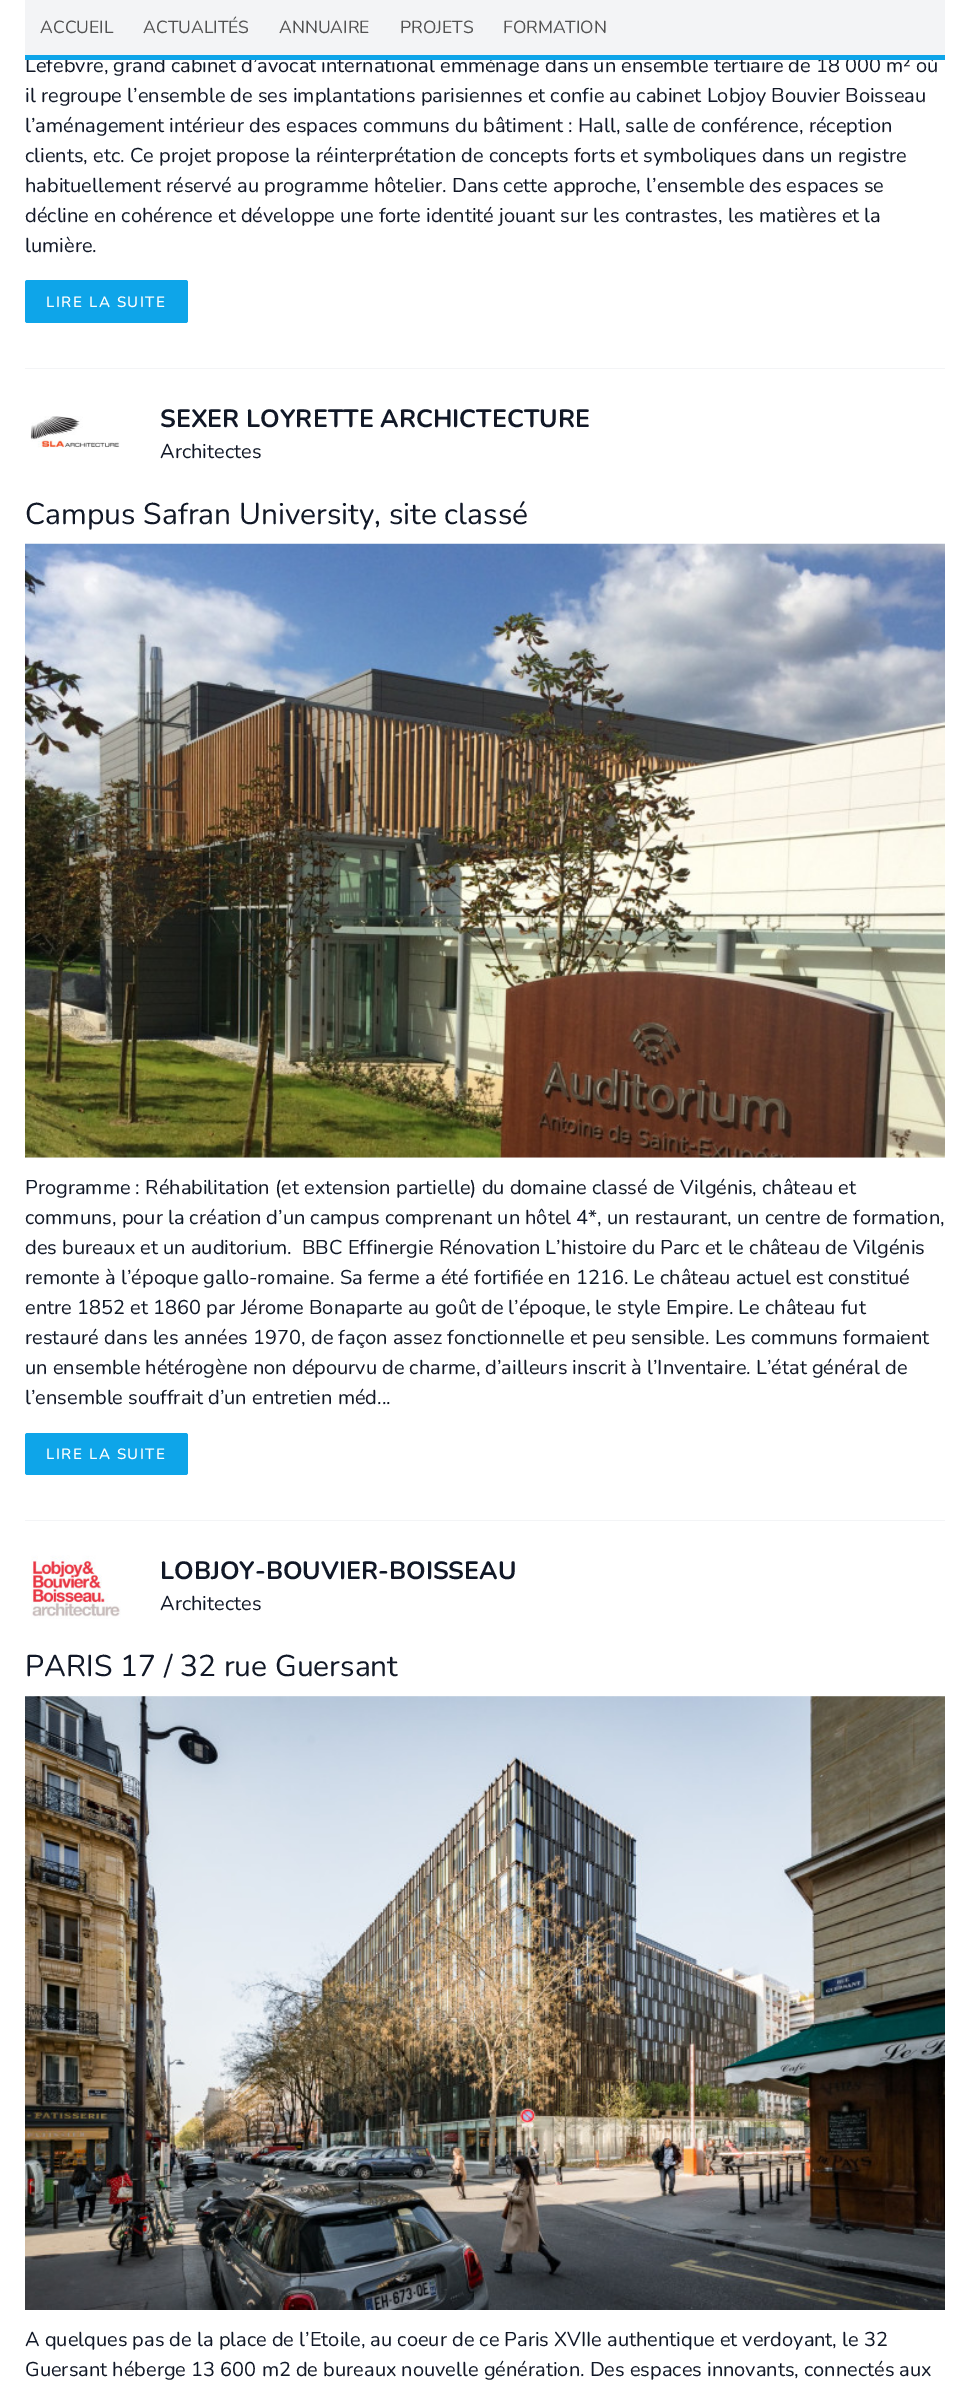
%!PS-Adobe-3.0
%%BoundingBox: 0 0 970 2385
%%LanguageLevel: 3
%%Pages: 1
%%EndComments
%%BeginProlog
/setink { dup -16 bitshift 255 div exch dup -8 bitshift 255 and 255 div exch 255 and 255 div setrgbcolor } def
/usefont { [ exch dup neg 0 0 3 -1 roll 0 0 ] selectfont } def
/rrect { 5 dict begin { /r /h /w /y /x } { exch def } forall
  x r add y moveto x w add y 2 copy h add r arct x w add y h add x 1 index r arct
  x y h add x y r arct x y 2 copy exch w add exch r arct closepath end } def
/drawimage { 5 dict begin { /h /w /y /x /name } { exch def } forall
  gsave x y translate w h scale
  w h 8 [w 0 0 h 0 0] name (r) file false 3 colorimage grestore end } def
%%EndProlog
%%BeginSetup
<< /PageSize [970 2385] >> setpagedevice
%%EndSetup
%%Page: 1 1
0 2385 translate 1 -1 scale
4 setmiterlimit
16#FFFFFF setink
0 0 970 2385 rectfill
16#F3F4F6 setink
25 0 920 55 rectfill
/Nunito-Regular 17.5 usefont
16#525252 setink
[
    [(ACCUEIL) 40 33]
    [(ACTUALITÉS) 143 33]
    [(ANNUAIRE) 279 33]
    [(PROJETS) 400 33]
    [(FORMATION) 503 33]
] { aload pop moveto show } forall
/Nunito-Regular 20 usefont
16#111827 setink
25 72 moveto (Lefebvre, grand cabinet d’avocat international emménage dans un ensemble tertiaire de 18 000 m² où) show
16#0EA5E9 setink
25 55 920 5 rectfill
16#111827 setink
[
    [(il regroupe l’ensemble de ses implantations parisiennes et confie au cabinet Lobjoy Bouvier Boisseau) 25 102]
    [(l’aménagement intérieur des espaces communs du bâtiment : Hall, salle de conférence, réception) 25 132]
    [(clients, etc. Ce projet propose la réinterprétation de concepts forts et symboliques dans un registre) 25 162]
    [(habituellement réservé au programme hôtelier. Dans cette approche, l’ensemble des espaces se) 25 192]
    [(décline en cohérence et développe une forte identité jouant sur les contrastes, les matières et la) 25 222]
    [(lumière.) 25 252]
] { aload pop moveto show } forall
16#0EA5E9 setink
25 280 163 43 2.5 rrect fill
/Nunito-SemiBold 15 usefont
16#FFFFFF setink
46 307 moveto 1.5 0 (LIRE LA SUITE) ashow
16#F3F4F6 setink
25 368 920 1 rectfill
(img1.raw) 30 416 90 32 drawimage
/Nunito-Bold 25 usefont
16#111827 setink
160 427 moveto (SEXER LOYRETTE ARCHICTECTURE) show
/Nunito-Regular 20 usefont
160 458 moveto (Architectes) show
/Nunito-Regular 30 usefont
25 524 moveto (Campus Safran University, site classé) show
16#F3F4F6 setink
25 1157 920 1 rectfill
(img2.raw) 25 543 920 615 drawimage
/Nunito-Regular 20 usefont
16#111827 setink
[
    [(Programme : Réhabilitation \(et extension partielle\) du domaine classé de Vilgénis, château et) 25 1194]
    [(communs, pour la création d’un campus comprenant un hôtel 4*, un restaurant, un centre de formation,) 25 1224]
    [(des bureaux et un auditorium.  BBC Effinergie Rénovation L’histoire du Parc et le château de Vilgénis) 25 1254]
    [(remonte à l’époque gallo-romaine. Sa ferme a été fortifiée en 1216. Le château actuel est constitué) 25 1284]
    [(entre 1852 et 1860 par Jérome Bonaparte au goût de l’époque, le style Empire. Le château fut) 25 1314]
    [(restauré dans les années 1970, de façon assez fonctionnelle et peu sensible. Les communs formaient) 25 1344]
    [(un ensemble hétérogène non dépourvu de charme, d’ailleurs inscrit à l’Inventaire. L’état général de) 25 1374]
    [(l’ensemble souffrait d’un entretien méd...) 25 1404]
] { aload pop moveto show } forall
16#0EA5E9 setink
25 1433 163 42 2.5 rrect fill
/Nunito-SemiBold 15 usefont
16#FFFFFF setink
46 1459 moveto 1.5 0 (LIRE LA SUITE) ashow
16#F3F4F6 setink
25 1520 920 1 rectfill
(img3.raw) 31 1555 90 64 drawimage
/Nunito-Bold 25 usefont
16#111827 setink
160 1579 moveto (LOBJOY-BOUVIER-BOISSEAU) show
/Nunito-Regular 20 usefont
160 1610 moveto (Architectes) show
/Nunito-Regular 30 usefont
25 1676 moveto (PARIS 17 / 32 rue Guersant) show
(img4.raw) 25 1696 920 614 drawimage
/Nunito-Regular 20 usefont
25 2346 moveto (A quelques pas de la place de l’Etoile, au coeur de ce Paris XVIIe authentique et verdoyant, le 32) show
25 2376 moveto (Guersant héberge 13 600 m2 de bureaux nouvelle génération. Des espaces innovants, connectés aux) show
showpage
%%EOF
